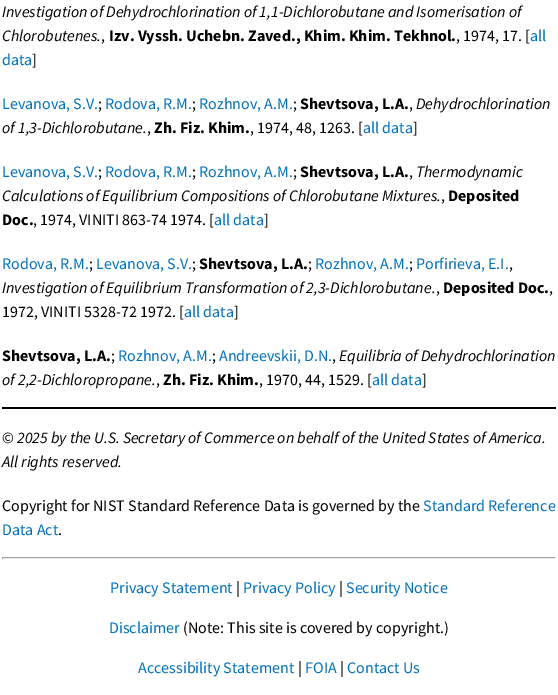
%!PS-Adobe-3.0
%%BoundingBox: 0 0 558 695
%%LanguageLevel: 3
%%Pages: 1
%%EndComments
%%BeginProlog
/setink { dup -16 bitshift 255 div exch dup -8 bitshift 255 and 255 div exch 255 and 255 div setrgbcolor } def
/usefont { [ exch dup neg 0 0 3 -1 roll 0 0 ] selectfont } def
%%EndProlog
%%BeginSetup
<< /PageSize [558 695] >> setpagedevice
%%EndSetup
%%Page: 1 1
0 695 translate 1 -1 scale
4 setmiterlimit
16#FFFFFF setink
0 0 558 695 rectfill
/SourceSansPro-Italic 16 usefont
16#000000 setink
2 17 moveto (Investigation of Dehydrochlorination of 1,1-Dichlorobutane and Isomerisation of) show
2 41 moveto (Chlorobutenes.) show
/SourceSansPro-Regular 16 usefont
101 41 moveto (,) show
/SourceSansPro-Bold 16 usefont
109 41 moveto (Izv. Vyssh. Uchebn. Zaved., Khim. Khim. Tekhnol.) show
/SourceSansPro-Regular 16 usefont
456 41 moveto (, 1974, 17. [) show
16#0071BC setink
530 41 moveto (all) show
2 65 moveto (data) show
16#000000 setink
32 65 moveto (]) show
16#0071BC setink
2 109 moveto (Levanova, S.V.) show
16#000000 setink
98 109 moveto (;) show
16#0071BC setink
105 109 moveto (Rodova, R.M.) show
16#000000 setink
192 109 moveto (;) show
16#0071BC setink
199 109 moveto (Rozhnov, A.M.) show
16#000000 setink
293 109 moveto (;) show
/SourceSansPro-Bold 16 usefont
300 109 moveto (Shevtsova, L.A.) show
/SourceSansPro-Regular 16 usefont
409 109 moveto (,) show
/SourceSansPro-Italic 16 usefont
416 109 moveto (Dehydrochlorination) show
2 133 moveto (of 1,3-Dichlorobutane.) show
/SourceSansPro-Regular 16 usefont
147 133 moveto (,) show
/SourceSansPro-Bold 16 usefont
154 133 moveto (Zh. Fiz. Khim.) show
/SourceSansPro-Regular 16 usefont
250 133 moveto (, 1974, 48, 1263. [) show
16#0071BC setink
363 133 moveto (all data) show
16#000000 setink
413 133 moveto (]) show
16#0071BC setink
2 177 moveto (Levanova, S.V.) show
16#000000 setink
98 177 moveto (;) show
16#0071BC setink
105 177 moveto (Rodova, R.M.) show
16#000000 setink
192 177 moveto (;) show
16#0071BC setink
199 177 moveto (Rozhnov, A.M.) show
16#000000 setink
293 177 moveto (;) show
/SourceSansPro-Bold 16 usefont
300 177 moveto (Shevtsova, L.A.) show
/SourceSansPro-Regular 16 usefont
409 177 moveto (,) show
/SourceSansPro-Italic 16 usefont
416 177 moveto (Thermodynamic) show
2 201 moveto (Calculations of Equilibrium Compositions of Chlorobutane Mixtures.) show
/SourceSansPro-Regular 16 usefont
441 201 moveto (,) show
/SourceSansPro-Bold 16 usefont
448 201 moveto (Deposited) show
2 225 moveto (Doc.) show
/SourceSansPro-Regular 16 usefont
33 225 moveto (, 1974, VINITI 863-74 1974. [) show
16#0071BC setink
214 225 moveto (all data) show
16#000000 setink
264 225 moveto (]) show
16#0071BC setink
2 269 moveto (Rodova, R.M.) show
16#000000 setink
89 269 moveto (;) show
16#0071BC setink
96 269 moveto (Levanova, S.V.) show
16#000000 setink
192 269 moveto (;) show
/SourceSansPro-Bold 16 usefont
199 269 moveto (Shevtsova, L.A.) show
/SourceSansPro-Regular 16 usefont
308 269 moveto (;) show
16#0071BC setink
315 269 moveto (Rozhnov, A.M.) show
16#000000 setink
409 269 moveto (;) show
16#0071BC setink
416 269 moveto (Porfirieva, E.I.) show
16#000000 setink
509 269 moveto (,) show
/SourceSansPro-Italic 16 usefont
2 293 moveto (Investigation of Equilibrium Transformation of 2,3-Dichlorobutane.) show
/SourceSansPro-Regular 16 usefont
436 293 moveto (,) show
/SourceSansPro-Bold 16 usefont
443 293 moveto (Deposited Doc.) show
/SourceSansPro-Regular 16 usefont
549 293 moveto (,) show
2 317 moveto (1972, VINITI 5328-72 1972. [) show
16#0071BC setink
184 317 moveto (all data) show
16#000000 setink
234 317 moveto (]) show
/SourceSansPro-Bold 16 usefont
2 361 moveto (Shevtsova, L.A.) show
/SourceSansPro-Regular 16 usefont
111 361 moveto (;) show
16#0071BC setink
118 361 moveto (Rozhnov, A.M.) show
16#000000 setink
212 361 moveto (;) show
16#0071BC setink
219 361 moveto (Andreevskii, D.N.) show
16#000000 setink
332 361 moveto (,) show
/SourceSansPro-Italic 16 usefont
339 361 moveto (Equilibria of Dehydrochlorination) show
2 385 moveto (of 2,2-Dichloropropane.) show
/SourceSansPro-Regular 16 usefont
156 385 moveto (,) show
/SourceSansPro-Bold 16 usefont
163 385 moveto (Zh. Fiz. Khim.) show
/SourceSansPro-Regular 16 usefont
259 385 moveto (, 1970, 44, 1529. [) show
16#0071BC setink
372 385 moveto (all data) show
16#000000 setink
422 385 moveto (]) show
2 407 554 2 rectfill
2 443 moveto (©) show
/SourceSansPro-Italic 16 usefont
17 443 moveto (2025 by the U.S. Secretary of Commerce on behalf of the United States of America.) show
2 467 moveto (All rights reserved.) show
/SourceSansPro-Regular 16 usefont
2 511 moveto (Copyright for NIST Standard Reference Data is governed by the) show
16#0071BC setink
423 511 moveto (Standard Reference) show
2 535 moveto (Data Act) show
16#000000 setink
58 535 moveto (.) show
[
    [2 557 554 1 16#9F9F9F]
    [555 557 1 2 16#EEEEEE]
    [2 558 554 1 16#EEEEEE]
    [2 557 1 2 16#9F9F9F]
] { aload pop setink rectfill } forall
16#0071BC setink
110 593 moveto (Privacy Statement) show
16#000000 setink
236 593 moveto (|) show
16#0071BC setink
243 593 moveto (Privacy Policy) show
16#000000 setink
339 593 moveto (|) show
16#0071BC setink
346 593 moveto (Security Notice) show
109 633 moveto (Disclaimer) show
16#000000 setink
183 633 moveto (\(Note: This site is covered by copyright.\)) show
16#0071BC setink
138 673 moveto (Accessibility Statement) show
16#000000 setink
298 673 moveto (|) show
16#0071BC setink
305 673 moveto (FOIA) show
16#000000 setink
340 673 moveto (|) show
16#0071BC setink
347 673 moveto (Contact Us) show
showpage
%%EOF
